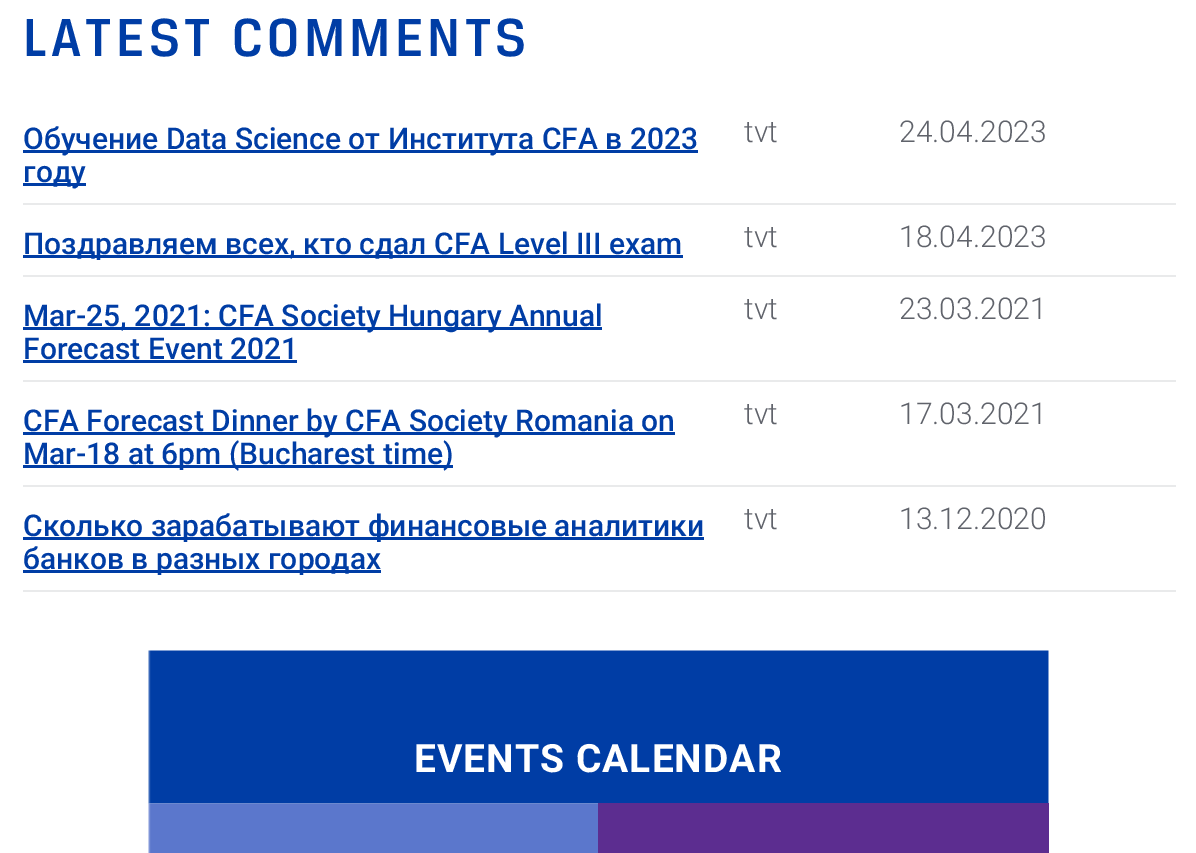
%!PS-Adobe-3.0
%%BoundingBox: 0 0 1196 853
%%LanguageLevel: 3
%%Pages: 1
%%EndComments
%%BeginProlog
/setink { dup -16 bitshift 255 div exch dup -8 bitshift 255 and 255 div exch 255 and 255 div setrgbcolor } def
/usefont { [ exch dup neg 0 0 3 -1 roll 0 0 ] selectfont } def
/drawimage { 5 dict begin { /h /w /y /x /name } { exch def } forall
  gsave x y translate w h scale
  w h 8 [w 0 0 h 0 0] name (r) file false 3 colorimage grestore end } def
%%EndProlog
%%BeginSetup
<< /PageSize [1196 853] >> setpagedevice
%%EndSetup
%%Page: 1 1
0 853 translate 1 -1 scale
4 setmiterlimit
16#FFFFFF setink
0 0 1196 853 rectfill
/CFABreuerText-Medium 57 usefont
16#003DA5 setink
23 56 moveto 4.25 0 (LATEST COMMENTS) ashow
16#E9EAEB setink
23 203 1153 2 rectfill
16#003DA5 setink
23 150 675 3 rectfill
/Roboto-Medium 30 usefont
23 149 moveto (Обучение Data Science от Института CFA в 2023) show
23 183 63 3 rectfill
23 182 moveto (году) show
/Roboto-Light 30 usefont
16#60636B setink
744 142 moveto (tvt) show
899 142 moveto (24.04.2023) show
16#E9EAEB setink
23 275 1153 2 rectfill
16#003DA5 setink
23 255 660 3 rectfill
/Roboto-Medium 30 usefont
23 254 moveto (Поздравляем всех, кто сдал CFA Level III exam) show
/Roboto-Light 30 usefont
16#60636B setink
744 247 moveto (tvt) show
899 247 moveto (18.04.2023) show
16#E9EAEB setink
23 380 1153 2 rectfill
16#003DA5 setink
23 327 579 3 rectfill
/Roboto-Medium 30 usefont
23 326 moveto (Mar-25, 2021: CFA Society Hungary Annual) show
23 359 moveto (Forecast Event 2021) show
23 360 274 3 rectfill
/Roboto-Light 30 usefont
16#60636B setink
744 319 moveto (tvt) show
899 319 moveto (23.03.2021) show
16#E9EAEB setink
23 485 1153 2 rectfill
16#003DA5 setink
23 432 652 3 rectfill
/Roboto-Medium 30 usefont
23 431 moveto (CFA Forecast Dinner by CFA Society Romania on) show
23 465 430 3 rectfill
23 464 moveto (Mar-18 at 6pm \(Bucharest time\)) show
/Roboto-Light 30 usefont
16#60636B setink
744 424 moveto (tvt) show
899 424 moveto (17.03.2021) show
16#E9EAEB setink
23 590 1153 2 rectfill
16#003DA5 setink
23 537 681 3 rectfill
/Roboto-Medium 30 usefont
23 536 moveto (Сколько зарабатывают финансовые аналитики) show
23 570 358 3 rectfill
23 569 moveto (банков в разных городах) show
/Roboto-Light 30 usefont
16#60636B setink
744 529 moveto (tvt) show
899 529 moveto (13.12.2020) show
(img1.raw) 148 650 901 154 drawimage
/Roboto-Bold 39 usefont
16#FFFFFF setink
414 772 moveto 1 0 (EVENTS CALENDAR) ashow
(img2.raw) 148 803 450 50 drawimage
16#5C2D90 setink
598 803 451 50 rectfill
showpage
%%EOF
